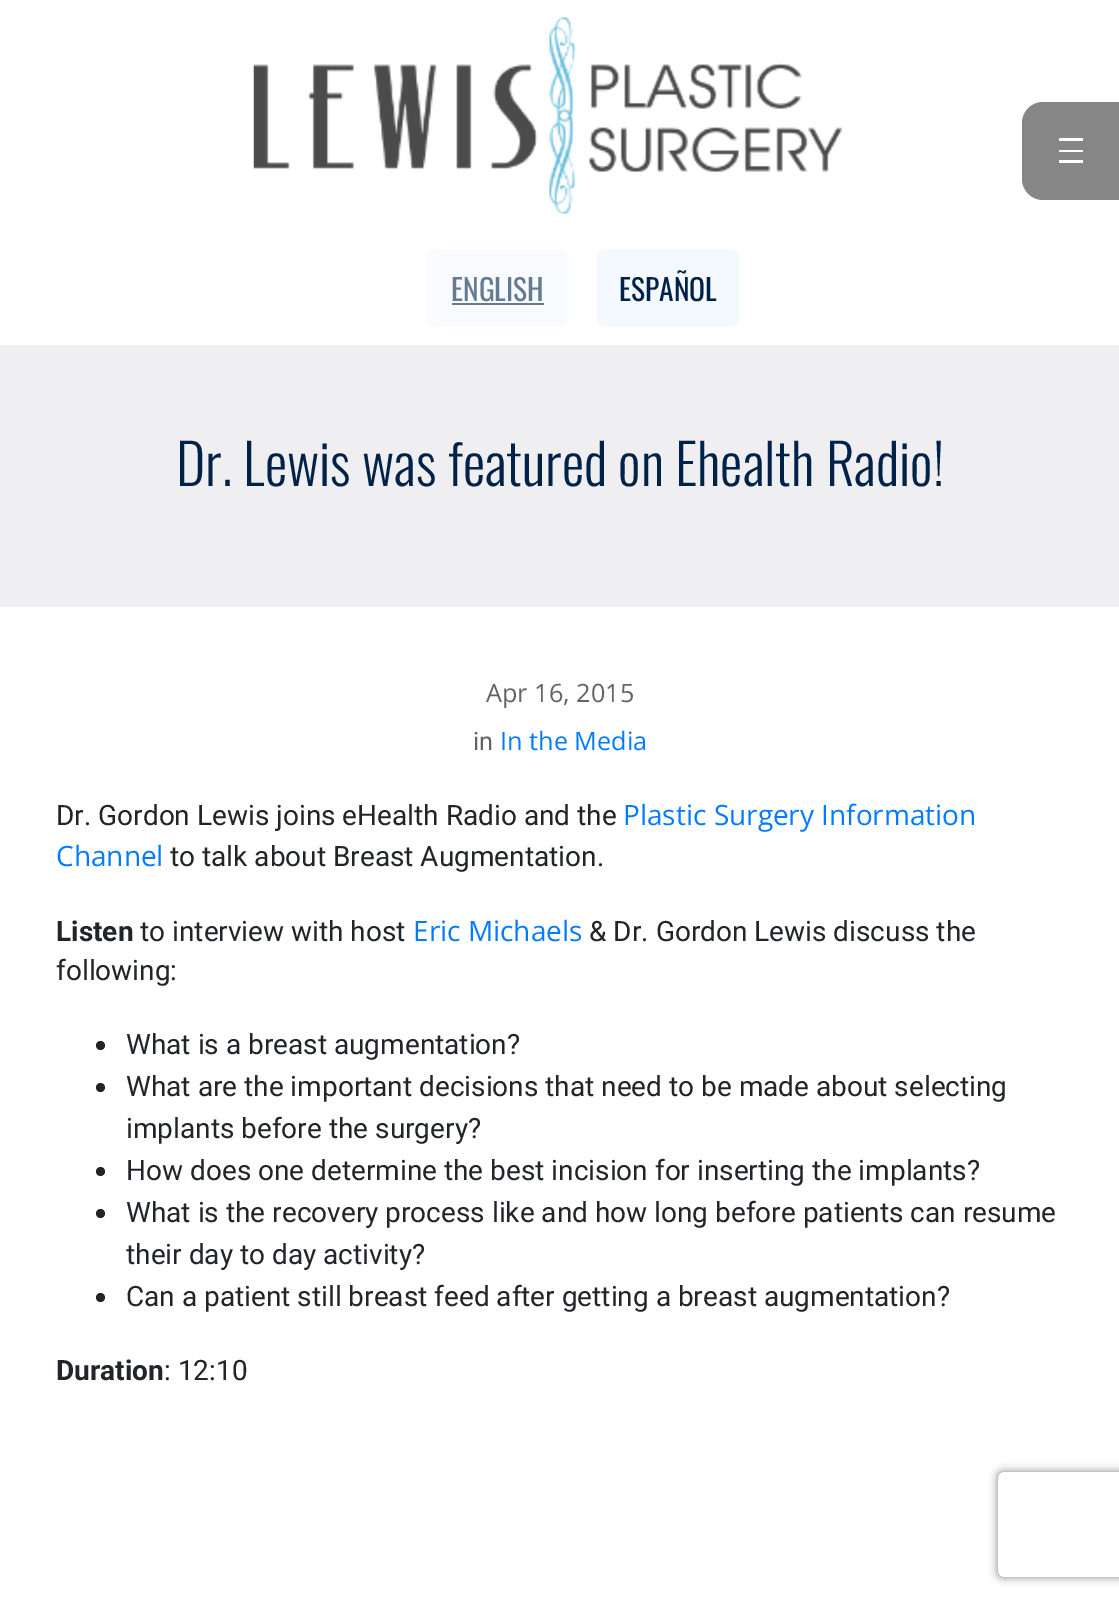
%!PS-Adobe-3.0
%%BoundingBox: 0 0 1119 1601
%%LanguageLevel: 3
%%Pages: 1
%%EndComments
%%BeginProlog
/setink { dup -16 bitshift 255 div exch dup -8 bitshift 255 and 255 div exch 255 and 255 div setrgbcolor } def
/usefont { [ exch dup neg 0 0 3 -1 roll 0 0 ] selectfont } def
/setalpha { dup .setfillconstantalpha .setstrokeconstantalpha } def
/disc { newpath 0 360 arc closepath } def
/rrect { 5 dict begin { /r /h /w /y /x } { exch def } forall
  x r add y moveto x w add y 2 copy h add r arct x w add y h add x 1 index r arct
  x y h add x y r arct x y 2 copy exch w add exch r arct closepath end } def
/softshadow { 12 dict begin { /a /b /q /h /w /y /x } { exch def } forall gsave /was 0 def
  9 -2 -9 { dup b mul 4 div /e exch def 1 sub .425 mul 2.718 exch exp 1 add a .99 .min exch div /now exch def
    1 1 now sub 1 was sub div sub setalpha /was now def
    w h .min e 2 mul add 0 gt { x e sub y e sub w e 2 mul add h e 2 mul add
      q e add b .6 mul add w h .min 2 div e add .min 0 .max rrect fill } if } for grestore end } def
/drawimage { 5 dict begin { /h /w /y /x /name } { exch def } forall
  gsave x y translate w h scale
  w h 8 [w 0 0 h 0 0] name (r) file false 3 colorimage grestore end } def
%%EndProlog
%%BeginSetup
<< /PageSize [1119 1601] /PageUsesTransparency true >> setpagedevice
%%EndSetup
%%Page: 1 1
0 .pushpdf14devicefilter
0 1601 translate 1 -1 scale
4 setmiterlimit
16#FFFFFF setink
0 0 1119 1601 rectfill
(img1.raw) 253 17 589 197 drawimage
16#868687 setink
1043 102 moveto 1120 102 lineto 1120 200 lineto 1043 200 lineto 1031.5 200 1022 190.5 1022 179 curveto 1022 123 lineto 1022 111.5 1031.5 102 1043 102 curveto closepath fill
[
    [1059 138 24 3 16#FFFFFF]
    [1059 150 24 2 16#FFFFFF]
    [1059 160 24 3 16#FFFFFF]
] { aload pop setink rectfill } forall
16#F8FBFF setink
427 249 142 78 9 rrect fill
/Oswald-Regular 29.5 usefont
16#667A91 setink
451 301 moveto (ENGLISH) show
452 303 92 2 rectfill
16#F4F9FF setink
597 249 142 78 9 rrect fill
16#002248 setink
619 301 moveto (ESPAÑOL) show
16#EFEFF1 setink
0 345 1119 262 rectfill
/Oswald-Light 56 usefont
16#002248 setink
176 486 moveto (Dr. Lewis was featured on Ehealth Radio!) show
/OpenSans-Regular 25.25 usefont
16#636363 setink
486 702 moveto (Apr 16, 2015) show
/Roboto-Regular 25.25 usefont
473 750 moveto (in) show
/OpenSans-Regular 25.25 usefont
16#007BFF setink
500 750 moveto (In the Media) show
/Roboto-Regular 28 usefont
16#212529 setink
56 825 moveto (Dr. Gordon Lewis joins eHealth Radio and the) show
/OpenSans-Regular 28 usefont
16#007BFF setink
623 825 moveto (Plastic Surgery Information) show
56 866 moveto (Channel) show
/Roboto-Regular 28 usefont
16#212529 setink
170 866 moveto (to talk about Breast Augmentation.) show
/Roboto-Bold 28 usefont
56 941 moveto (Listen) show
/Roboto-Regular 28 usefont
140 941 moveto (to interview with host) show
/OpenSans-Regular 28 usefont
16#007BFF setink
413 941 moveto (Eric Michaels) show
/Roboto-Regular 28 usefont
16#212529 setink
589 941 moveto (& Dr. Gordon Lewis discuss the) show
56 980 moveto (following:) show
100.5 1045.5 4.5 disc fill
126 1054 moveto (What is a breast augmentation?) show
100.5 1087.5 4.5 disc fill
126 1096 moveto (What are the important decisions that need to be made about selecting) show
126 1138 moveto (implants before the surgery?) show
100.5 1171.5 4.5 disc fill
126 1180 moveto (How does one determine the best incision for inserting the implants?) show
100.5 1213.5 4.5 disc fill
126 1222 moveto (What is the recovery process like and how long before patients can resume) show
126 1264 moveto (their day to day activity?) show
100.5 1297.5 4.5 disc fill
126 1306 moveto (Can a patient still breast feed after getting a breast augmentation?) show
/Roboto-Bold 28 usefont
56 1380 moveto (Duration) show
/Roboto-Regular 28 usefont
164 1380 moveto (: 12:10) show
gsave
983 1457 moveto 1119 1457 lineto 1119 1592 lineto 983 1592 lineto closepath 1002 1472 moveto 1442 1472 lineto 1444 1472 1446 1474 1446 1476 curveto 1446 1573 lineto 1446 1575 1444 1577 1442 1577 curveto 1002 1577 lineto 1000 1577 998 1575 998 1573 curveto 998 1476 lineto 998 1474 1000 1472 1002 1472 curveto closepath eoclip newpath
16#808080 setink
998 1472 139 105 4 4.5 1 softshadow
grestore
.poppdf14devicefilter showpage
%%EOF
